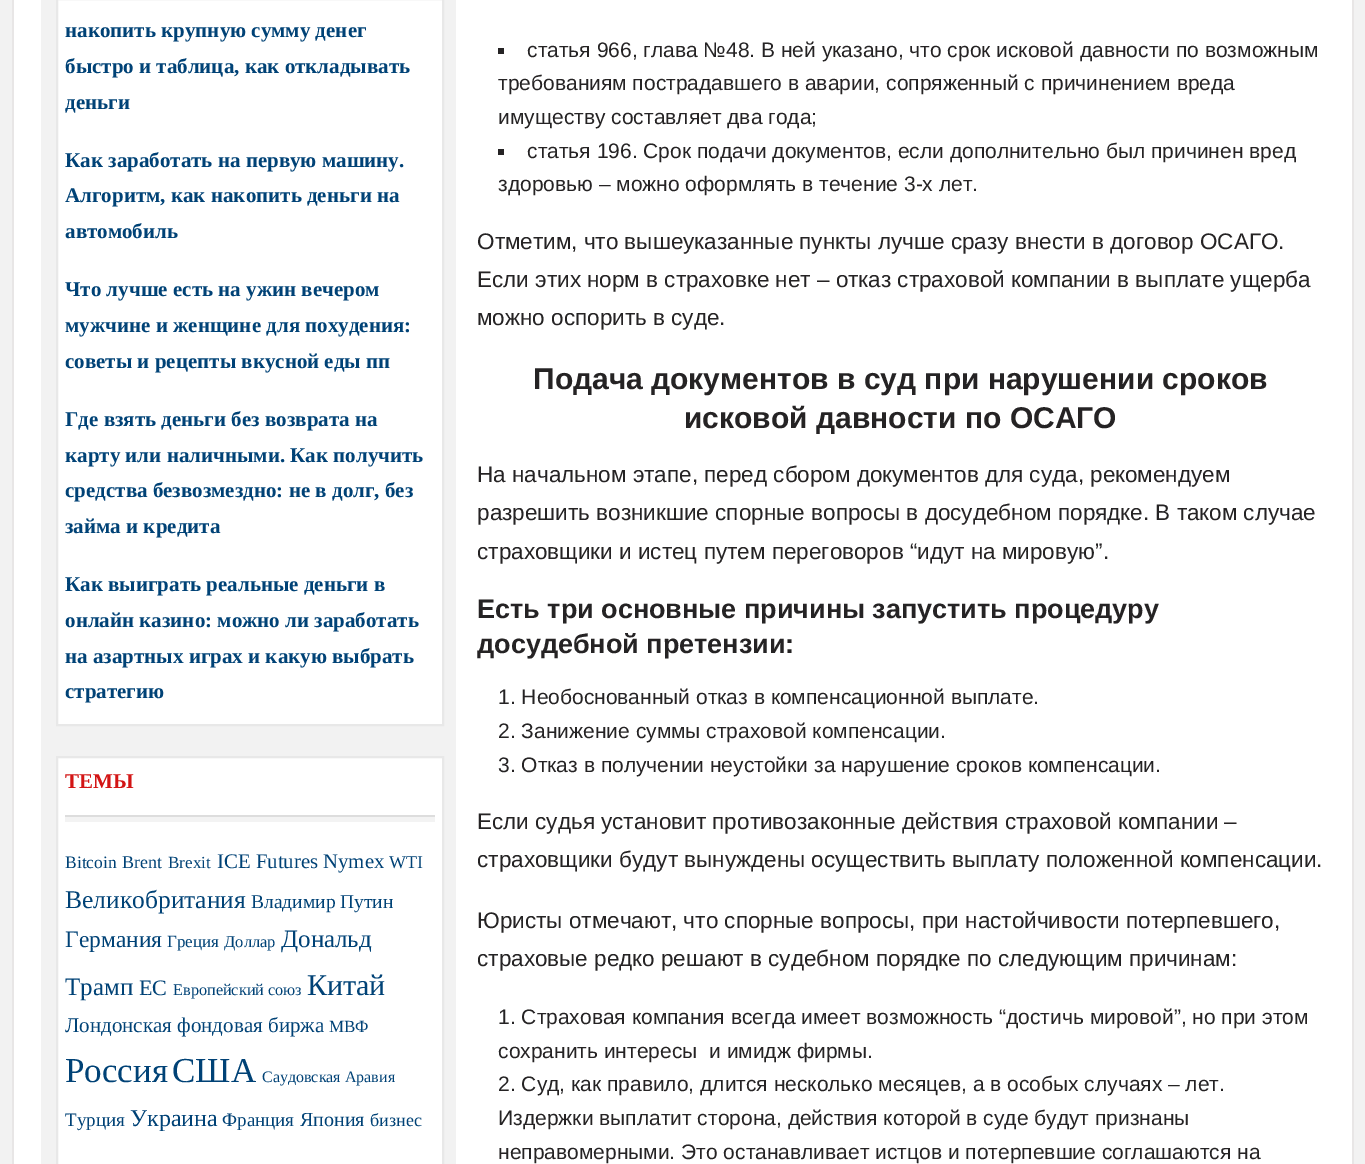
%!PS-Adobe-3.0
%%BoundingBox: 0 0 1365 1164
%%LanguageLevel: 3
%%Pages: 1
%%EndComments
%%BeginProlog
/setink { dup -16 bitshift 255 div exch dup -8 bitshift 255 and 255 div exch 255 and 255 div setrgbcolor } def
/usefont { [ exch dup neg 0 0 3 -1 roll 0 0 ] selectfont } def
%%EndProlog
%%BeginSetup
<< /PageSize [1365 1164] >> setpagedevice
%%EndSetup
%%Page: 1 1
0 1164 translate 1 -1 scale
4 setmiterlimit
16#F2F2F2 setink
0 0 1365 1164 rectfill
[
    [14 0 1338 1164 16#FFFFFF]
    [1352 0 2 1164 16#E8E6E6]
    [12 0 2 1164 16#E8E6E6]
    [41 0 415 1164 16#F2F2F2]
] { aload pop setink rectfill } forall
16#FFFFFF setink
57 -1 moveto 443 -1 lineto 443 725 lineto 57 725 lineto closepath gsave fill grestore
16#E8E8E8 setink
2 setlinewidth
stroke
/LiberationSerif-Bold 21 usefont
16#004276 setink
[
    [(накопить крупную сумму денег) 65 37]
    [(быстро и таблица, как откладывать) 65 73]
    [(деньги) 65 109]
    [(Как заработать на первую машину.) 65 167]
    [(Алгоритм, как накопить деньги на) 65 202]
    [(автомобиль) 65 238]
    [(Что лучше есть на ужин вечером) 65 296]
    [(мужчине и женщине для похудения:) 65 332]
    [(советы и рецепты вкусной еды пп) 65 368]
    [(Где взять деньги без возврата на) 65 426]
    [(карту или наличными. Как получить) 65 462]
    [(средства безвозмездно: не в долг, без) 65 497]
    [(займа и кредита) 65 533]
    [(Как выиграть реальные деньги в) 65 591]
    [(онлайн казино: можно ли заработать) 65 627]
    [(на азартных играх и какую выбрать) 65 663]
    [(стратегию) 65 698]
] { aload pop moveto show } forall
16#FFFFFF setink
57 757 moveto 443 757 lineto 443 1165 lineto 57 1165 lineto closepath gsave fill grestore
16#E8E8E8 setink
stroke
16#F3F3F3 setink
65 817 370 5 rectfill
16#DDDDDD setink
65 815 370 2 rectfill
16#D31515 setink
65 788 moveto (ТЕМЫ) show
/LiberationSerif-Regular 17.5 usefont
16#004276 setink
65 868 moveto (Bitcoin) show
/LiberationSerif-Regular 18 usefont
122 868 moveto (Brent) show
/LiberationSerif-Regular 17 usefont
168 868 moveto (Brexit) show
/LiberationSerif-Regular 20.75 usefont
217 868 moveto (ICE Futures Nymex) show
/LiberationSerif-Regular 18 usefont
389 868 moveto (WTI) show
/LiberationSerif-Regular 25.5 usefont
65 908 moveto (Великобритания) show
/LiberationSerif-Regular 19.5 usefont
251 908 moveto (Владимир Путин) show
/LiberationSerif-Regular 23.5 usefont
65 947 moveto (Германия) show
/LiberationSerif-Regular 17 usefont
167 947 moveto (Греция) show
/LiberationSerif-Regular 16.5 usefont
224 947 moveto (Доллар) show
/LiberationSerif-Regular 25 usefont
281 947 moveto (Дональд) show
65 995 moveto (Трамп) show
/LiberationSerif-Regular 22 usefont
139 995 moveto (ЕС) show
/LiberationSerif-Regular 16.25 usefont
173 995 moveto (Европейский союз) show
/LiberationSerif-Regular 30 usefont
307 995 moveto (Китай) show
/LiberationSerif-Regular 21 usefont
65 1032 moveto (Лондонская фондовая биржа) show
/LiberationSerif-Regular 17 usefont
329 1032 moveto (МВФ) show
/LiberationSerif-Regular 35 usefont
65 1082 moveto (Россия) show
172 1082 moveto (США) show
/LiberationSerif-Regular 16 usefont
262 1082 moveto (Саудовская Аравия) show
/LiberationSerif-Regular 19 usefont
65 1126 moveto (Турция) show
/LiberationSerif-Regular 24 usefont
130 1126 moveto (Украина) show
/LiberationSerif-Regular 19 usefont
222 1126 moveto (Франция) show
/LiberationSerif-Regular 20 usefont
300 1126 moveto (Япония) show
/LiberationSerif-Regular 18 usefont
370 1126 moveto (бизнес) show
16#252324 setink
498 48 6 6 rectfill
/LiberationSans-Regular 21 usefont
[
    [(статья 966, глава №48. В ней указано, что срок исковой давности по возможным) 527 57]
    [(требованиям пострадавшего в аварии, сопряженный с причинением вреда) 498 90]
    [(имуществу составляет два года;) 498 124]
] { aload pop moveto show } forall
498 149 6 6 rectfill
527 158 moveto (статья 196. Срок подачи документов, если дополнительно был причинен вред) show
498 191 moveto (здоровью – можно оформлять в течение 3-х лет.) show
/LiberationSans-Regular 22.5 usefont
[
    [(Отметим, что вышеуказанные пункты лучше сразу внести в договор ОСАГО.) 477 249]
    [(Если этих норм в страховке нет – отказ страховой компании в выплате ущерба) 477 287]
    [(можно оспорить в суде.) 477 325]
] { aload pop moveto show } forall
/LiberationSans-Bold 30 usefont
533 389 moveto (Подача документов в суд при нарушении сроков) show
684 428 moveto (исковой давности по ОСАГО) show
/LiberationSans-Regular 22.5 usefont
[
    [(На начальном этапе, перед сбором документов для суда, рекомендуем) 477 482]
    [(разрешить возникшие спорные вопросы в досудебном порядке. В таком случае) 477 520]
    [(страховщики и истец путем переговоров “идут на мировую”.) 477 559]
] { aload pop moveto show } forall
/LiberationSans-Bold 27 usefont
477 618 moveto (Есть три основные причины запустить процедуру) show
477 653 moveto (досудебной претензии:) show
/LiberationSans-Regular 21 usefont
[
    [(1. Необоснованный отказ в компенсационной выплате.) 498 704]
    [(2. Занижение суммы страховой компенсации.) 498 738]
    [(3. Отказ в получении неустойки за нарушение сроков компенсации.) 498 772]
] { aload pop moveto show } forall
/LiberationSans-Regular 22.5 usefont
[
    [(Если судья установит противозаконные действия страховой компании –) 477 829]
    [(страховщики будут вынуждены осуществить выплату положенной компенсации.) 477 867]
    [(Юристы отмечают, что спорные вопросы, при настойчивости потерпевшего,) 477 928]
    [(страховые редко решают в судебном порядке по следующим причинам:) 477 966]
] { aload pop moveto show } forall
/LiberationSans-Regular 21 usefont
[
    [(1. Страховая компания всегда имеет возможность “достичь мировой”, но при этом) 498 1024]
    [(сохранить интересы  и имидж фирмы.) 498 1058]
    [(2. Суд, как правило, длится несколько месяцев, а в особых случаях – лет.) 498 1091]
    [(Издержки выплатит сторона, действия которой в суде будут признаны) 498 1125]
    [(неправомерными. Это останавливает истцов и потерпевшие соглашаются на) 498 1159]
] { aload pop moveto show } forall
showpage
%%EOF
